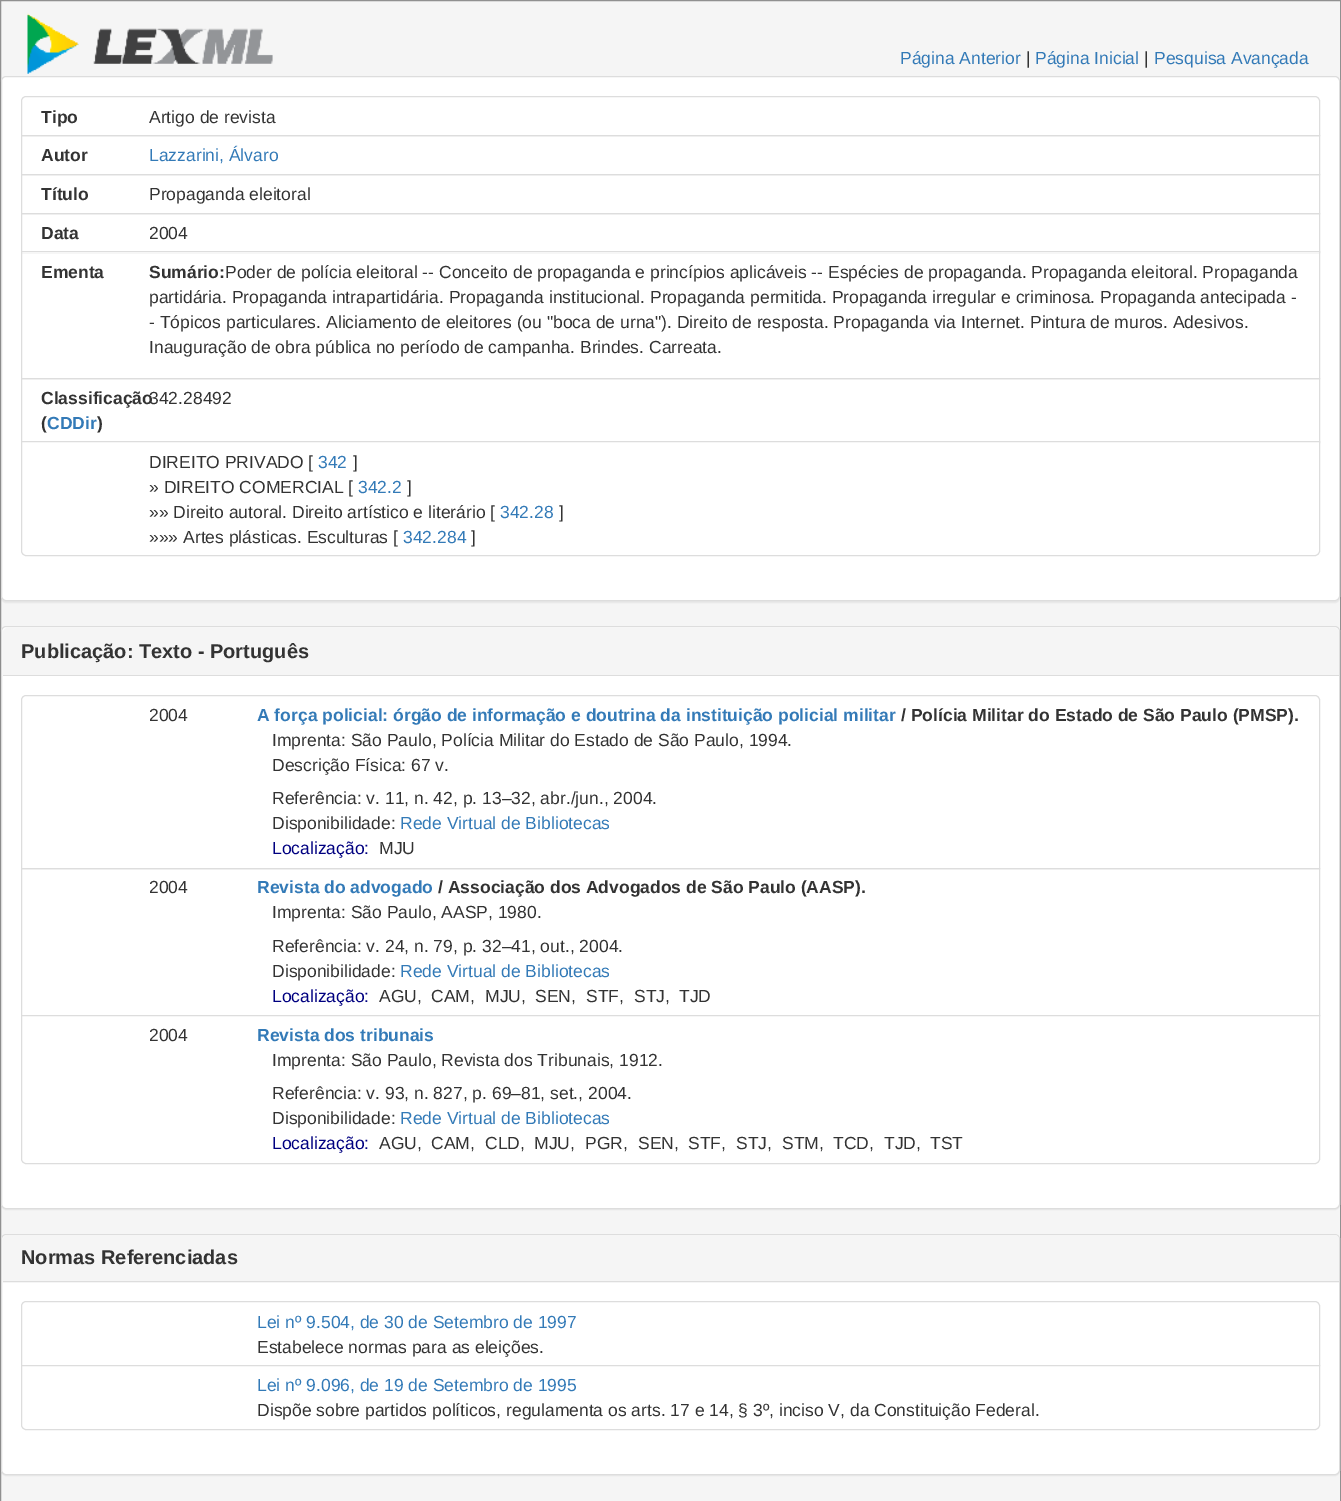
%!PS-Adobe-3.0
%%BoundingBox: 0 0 1341 1501
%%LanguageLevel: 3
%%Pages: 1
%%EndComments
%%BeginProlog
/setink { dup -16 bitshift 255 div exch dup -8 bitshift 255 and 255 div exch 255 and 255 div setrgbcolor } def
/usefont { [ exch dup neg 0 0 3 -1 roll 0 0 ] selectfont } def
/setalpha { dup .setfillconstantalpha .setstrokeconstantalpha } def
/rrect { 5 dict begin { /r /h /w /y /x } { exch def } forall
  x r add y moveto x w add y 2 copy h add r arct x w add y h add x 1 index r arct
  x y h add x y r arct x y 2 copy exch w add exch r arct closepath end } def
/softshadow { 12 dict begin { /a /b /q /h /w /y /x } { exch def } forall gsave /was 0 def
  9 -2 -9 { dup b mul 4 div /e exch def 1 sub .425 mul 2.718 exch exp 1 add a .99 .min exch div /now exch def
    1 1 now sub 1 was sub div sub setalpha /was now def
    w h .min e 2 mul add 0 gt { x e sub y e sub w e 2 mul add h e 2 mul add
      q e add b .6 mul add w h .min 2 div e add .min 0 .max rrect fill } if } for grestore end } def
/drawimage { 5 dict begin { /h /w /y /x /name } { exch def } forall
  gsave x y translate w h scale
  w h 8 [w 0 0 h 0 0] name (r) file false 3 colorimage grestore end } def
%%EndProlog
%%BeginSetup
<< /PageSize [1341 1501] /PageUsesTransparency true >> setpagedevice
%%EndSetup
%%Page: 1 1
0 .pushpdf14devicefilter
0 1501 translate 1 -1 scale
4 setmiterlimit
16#F5F5F5 setink
0 0 1341 1501 rectfill
16#909090 setink
0.5 0.5 1340 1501 rectstroke
(img1.raw) 27 13 246 61 drawimage
/LiberationSans-Regular 17.5 usefont
16#337AB7 setink
900 64 moveto (Página Anterior) show
16#333333 setink
1026 64 moveto (|) show
16#337AB7 setink
1035 64 moveto (Página Inicial) show
16#333333 setink
1144 64 moveto (|) show
16#337AB7 setink
1154 64 moveto (Pesquisa Avançada) show
16#000000 setink
1 78 1339 525 5 0.5 0.05 softshadow
16#FFFFFF setink
1.5 76.5 1338 524 4.5 rrect gsave fill grestore
16#DDDDDD setink
stroke
26 96.5 moveto 1315 96.5 lineto 1317.5 96.5 1319.5 98.5 1319.5 101 curveto 1319.5 135.5 lineto 21.5 135.5 lineto 21.5 101 lineto 21.5 98.5 23.5 96.5 26 96.5 curveto closepath stroke
/LiberationSans-Bold 17.5 usefont
16#333333 setink
41 123 moveto (Tipo) show
/LiberationSans-Regular 17.5 usefont
149 123 moveto (Artigo de revista) show
16#DDDDDD setink
21.5 135.5 1298 39 rectstroke
/LiberationSans-Bold 17.5 usefont
16#333333 setink
41 161 moveto (Autor) show
/LiberationSans-Regular 17.5 usefont
16#337AB7 setink
149 161 moveto (Lazzarini, Álvaro) show
16#DDDDDD setink
21.5 174.5 1298 39 rectstroke
/LiberationSans-Bold 17.5 usefont
16#333333 setink
41 200 moveto (Título) show
/LiberationSans-Regular 17.5 usefont
149 200 moveto (Propaganda eleitoral) show
16#DDDDDD setink
21.5 213.5 1298 39 rectstroke
/LiberationSans-Bold 17.5 usefont
16#333333 setink
41 239 moveto (Data) show
/LiberationSans-Regular 17.5 usefont
149 239 moveto (2004) show
16#FFFFFF setink
22 252 1297 1 rectfill
16#DDDDDD setink
21.5 251.5 1298 127 rectstroke
/LiberationSans-Bold 17.5 usefont
16#333333 setink
41 278 moveto (Ementa) show
149 278 moveto (Sumário:) show
/LiberationSans-Regular 17.5 usefont
[
    [(Poder de polícia eleitoral -- Conceito de propaganda e princípios aplicáveis -- Espécies de propaganda. Propaganda eleitoral. Propaganda) 225 278]
    [(partidária. Propaganda intrapartidária. Propaganda institucional. Propaganda permitida. Propaganda irregular e criminosa. Propaganda antecipada -) 149 303]
    [(- Tópicos particulares. Aliciamento de eleitores \(ou "boca de urna"\). Direito de resposta. Propaganda via Internet. Pintura de muros. Adesivos.) 149 328]
    [(Inauguração de obra pública no período de campanha. Brindes. Carreata.) 149 353]
] { aload pop moveto show } forall
16#DDDDDD setink
21.5 378.5 1298 64 rectstroke
/LiberationSans-Bold 17.5 usefont
16#333333 setink
41 404 moveto (Classificação) show
41 429 moveto (\() show
16#337AB7 setink
47 429 moveto (CDDir) show
16#333333 setink
97 429 moveto (\)) show
/LiberationSans-Regular 17.5 usefont
149 404 moveto (342.28492) show
16#FFFFFF setink
21.5 441.5 moveto 1319.5 441.5 lineto 1319.5 551 lineto 1319.5 553.5 1317.5 555.5 1315 555.5 curveto 26 555.5 lineto 23.5 555.5 21.5 553.5 21.5 551 curveto closepath gsave fill grestore
16#DDDDDD setink
stroke
16#333333 setink
149 468 moveto (DIREITO PRIVADO [) show
16#337AB7 setink
318 468 moveto (342) show
16#333333 setink
353 468 moveto (]) show
149 493 moveto (» DIREITO COMERCIAL [) show
16#337AB7 setink
358 493 moveto (342.2) show
16#333333 setink
407 493 moveto (]) show
149 518 moveto (»» Direito autoral. Direito artístico e literário [) show
16#337AB7 setink
500 518 moveto (342.28) show
16#333333 setink
559 518 moveto (]) show
149 543 moveto (»»» Artes plásticas. Esculturas [) show
16#337AB7 setink
403 543 moveto (342.284) show
16#333333 setink
471 543 moveto (]) show
16#000000 setink
1 628 1339 582 5 0.5 0.05 softshadow
16#FFFFFF setink
1.5 626.5 1338 582 4.5 rrect gsave fill grestore
16#DDDDDD setink
stroke
16#F5F5F5 setink
7 628 moveto 1335 628 lineto 1337 628 1339 630 1339 632 curveto 1339 676 lineto 3 676 lineto 3 632 lineto 3 630 5 628 7 628 curveto closepath fill
16#DDDDDD setink
3 675 1336 1 rectfill
/LiberationSans-Bold 20 usefont
16#333333 setink
21 658 moveto (Publicação: Texto - Português) show
16#DDDDDD setink
26 695.5 moveto 1315 695.5 lineto 1317.5 695.5 1319.5 697.5 1319.5 700 curveto 1319.5 868.5 lineto 21.5 868.5 lineto 21.5 700 lineto 21.5 697.5 23.5 695.5 26 695.5 curveto closepath stroke
/LiberationSans-Regular 17.5 usefont
16#333333 setink
149 721 moveto (2004) show
/LiberationSans-Bold 17.5 usefont
16#337AB7 setink
257 721 moveto (A força policial: órgão de informação e doutrina da instituição policial militar) show
16#333333 setink
901 721 moveto (/ Polícia Militar do Estado de São Paulo \(PMSP\).) show
/LiberationSans-Regular 17.5 usefont
[
    [(Imprenta: São Paulo, Polícia Militar do Estado de São Paulo, 1994.) 272 746]
    [(Descrição Física: 67 v.) 272 771]
    [(Referência: v. 11, n. 42, p. 13–32, abr./jun., 2004.) 272 804]
    [(Disponibilidade:) 272 829]
] { aload pop moveto show } forall
16#337AB7 setink
400 829 moveto (Rede Virtual de Bibliotecas) show
16#000080 setink
272 854 moveto (Localização:) show
16#333333 setink
379 854 moveto (MJU) show
16#DDDDDD setink
21.5 868.5 1298 147 rectstroke
16#333333 setink
149 893 moveto (2004) show
/LiberationSans-Bold 17.5 usefont
16#337AB7 setink
257 893 moveto (Revista do advogado) show
16#333333 setink
438 893 moveto (/ Associação dos Advogados de São Paulo \(AASP\).) show
/LiberationSans-Regular 17.5 usefont
[
    [(Imprenta: São Paulo, AASP, 1980.) 272 918]
    [(Referência: v. 24, n. 79, p. 32–41, out., 2004.) 272 952]
    [(Disponibilidade:) 272 977]
] { aload pop moveto show } forall
16#337AB7 setink
400 977 moveto (Rede Virtual de Bibliotecas) show
16#000080 setink
272 1002 moveto (Localização:) show
16#333333 setink
[
    [(AGU,) 379 1002]
    [(CAM,) 431 1002]
    [(MJU,) 485 1002]
    [(SEN,) 535 1002]
    [(STF,) 586 1002]
    [(STJ,) 634 1002]
    [(TJD) 679 1002]
] { aload pop moveto show } forall
16#FFFFFF setink
21.5 1015.5 moveto 1319.5 1015.5 lineto 1319.5 1159 lineto 1319.5 1161.5 1317.5 1163.5 1315 1163.5 curveto 26 1163.5 lineto 23.5 1163.5 21.5 1161.5 21.5 1159 curveto closepath gsave fill grestore
16#DDDDDD setink
stroke
16#333333 setink
149 1041 moveto (2004) show
/LiberationSans-Bold 17.5 usefont
16#337AB7 setink
257 1041 moveto (Revista dos tribunais) show
/LiberationSans-Regular 17.5 usefont
16#333333 setink
[
    [(Imprenta: São Paulo, Revista dos Tribunais, 1912.) 272 1066]
    [(Referência: v. 93, n. 827, p. 69–81, set., 2004.) 272 1099]
    [(Disponibilidade:) 272 1124]
] { aload pop moveto show } forall
16#337AB7 setink
400 1124 moveto (Rede Virtual de Bibliotecas) show
16#000080 setink
272 1149 moveto (Localização:) show
16#333333 setink
[
    [(AGU,) 379 1149]
    [(CAM,) 431 1149]
    [(CLD,) 485 1149]
    [(MJU,) 534 1149]
    [(PGR,) 585 1149]
    [(SEN,) 638 1149]
    [(STF,) 688 1149]
    [(STJ,) 736 1149]
    [(STM,) 782 1149]
    [(TCD,) 833 1149]
    [(TJD,) 884 1149]
    [(TST) 930 1149]
] { aload pop moveto show } forall
16#000000 setink
1 1235 1339 241 5 0.5 0.05 softshadow
16#FFFFFF setink
1.5 1234.5 1338 240 4.5 rrect gsave fill grestore
16#DDDDDD setink
stroke
16#F5F5F5 setink
7 1235 moveto 1335 1235 lineto 1337 1235 1339 1237 1339 1239 curveto 1339 1283 lineto 3 1283 lineto 3 1239 lineto 3 1237 5 1235 7 1235 curveto closepath fill
16#DDDDDD setink
3 1281 1336 1 rectfill
/LiberationSans-Bold 20 usefont
16#333333 setink
21 1264 moveto (Normas Referenciadas) show
16#DDDDDD setink
26 1301.5 moveto 1315 1301.5 lineto 1317.5 1301.5 1319.5 1303.5 1319.5 1306 curveto 1319.5 1365.5 lineto 21.5 1365.5 lineto 21.5 1306 lineto 21.5 1303.5 23.5 1301.5 26 1301.5 curveto closepath stroke
/LiberationSans-Regular 17.5 usefont
16#337AB7 setink
257 1328 moveto (Lei nº 9.504, de 30 de Setembro de 1997) show
16#333333 setink
257 1353 moveto (Estabelece normas para as eleições.) show
16#FFFFFF setink
21.5 1365.5 moveto 1319.5 1365.5 lineto 1319.5 1425 lineto 1319.5 1427.5 1317.5 1429.5 1315 1429.5 curveto 26 1429.5 lineto 23.5 1429.5 21.5 1427.5 21.5 1425 curveto closepath gsave fill grestore
16#DDDDDD setink
stroke
16#337AB7 setink
257 1391 moveto (Lei nº 9.096, de 19 de Setembro de 1995) show
16#333333 setink
257 1416 moveto (Dispõe sobre partidos políticos, regulamenta os arts. 17 e 14, § 3º, inciso V, da Constituição Federal.) show
.poppdf14devicefilter showpage
%%EOF
